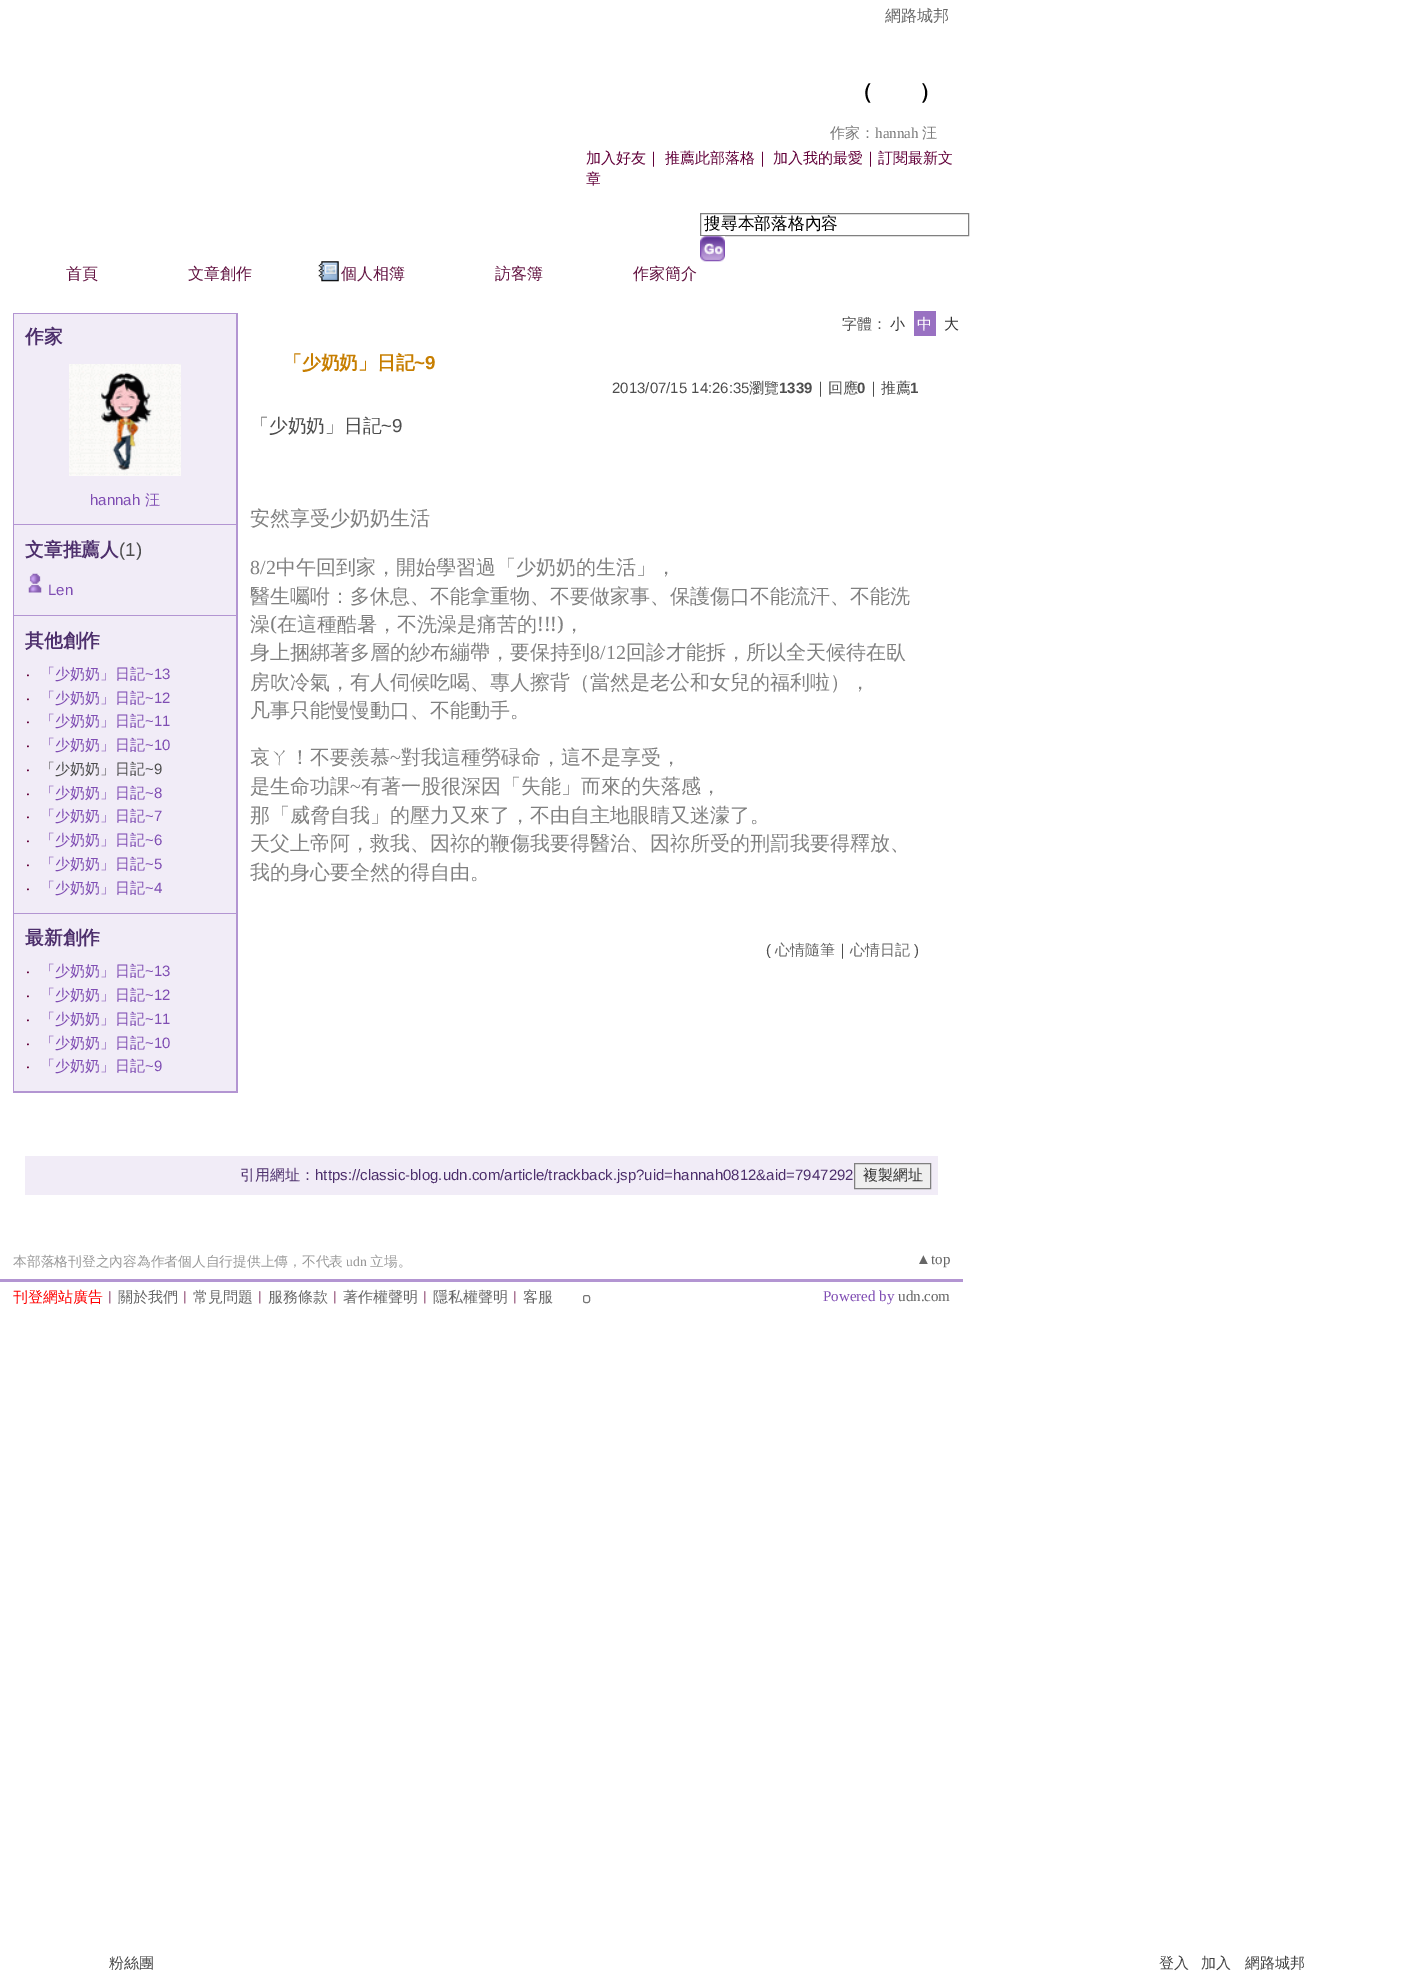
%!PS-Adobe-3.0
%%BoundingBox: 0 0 1414 1981
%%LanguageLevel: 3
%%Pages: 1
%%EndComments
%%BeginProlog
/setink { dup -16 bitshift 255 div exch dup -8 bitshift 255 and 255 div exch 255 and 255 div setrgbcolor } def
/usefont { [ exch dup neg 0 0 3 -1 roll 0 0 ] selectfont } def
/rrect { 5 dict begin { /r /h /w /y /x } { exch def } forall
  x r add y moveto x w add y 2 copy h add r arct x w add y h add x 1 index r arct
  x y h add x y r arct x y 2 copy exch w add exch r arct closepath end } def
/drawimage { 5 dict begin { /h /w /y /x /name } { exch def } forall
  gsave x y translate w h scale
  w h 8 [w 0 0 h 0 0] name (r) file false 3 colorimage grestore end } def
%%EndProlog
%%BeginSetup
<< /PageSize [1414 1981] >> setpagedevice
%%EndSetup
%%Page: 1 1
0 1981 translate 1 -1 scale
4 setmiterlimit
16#FFFFFF setink
0 0 1414 1981 rectfill
/WenQuanYiZenHei-Medium 16 usefont
16#666666 setink
885 21 moveto (網路城邦) show
/WenQuanYiZenHei-Bold 22 usefont
16#000000 setink
851 99 moveto (（) show
919 99 moveto (）) show
/WenQuanYiZenHei-Medium 15 usefont
16#7A7A7A setink
830 138 moveto (作家：) show
/LiberationSerif-Regular 15 usefont
875 138 moveto (hannah) show
/WenQuanYiZenHei-Medium 15 usefont
922 138 moveto (汪) show
16#620039 setink
[
    [(加入好友｜) 586 163]
    [(推薦此部落格｜) 665 163]
    [(加入我的最愛｜訂閱最新文) 773 163]
    [(章) 586 184]
] { aload pop moveto show } forall
16#808080 setink
700.5 213.5 268 22 rectstroke
/WenQuanYiZenHei-Medium 16.75 usefont
16#000000 setink
704 229 moveto (搜尋本部落格內容) show
(img1.raw) 700 236 25 26 drawimage
/WenQuanYiZenHei-Medium 16 usefont
16#631442 setink
66 279 moveto (首頁) show
188 279 moveto (文章創作) show
(img2.raw) 318 261 21 21 drawimage
[
    [(個人相簿) 341 279]
    [(訪客簿) 495 279]
    [(作家簡介) 633 279]
] { aload pop moveto show } forall
16#B395D2 setink
13 313 225 780 rectfill
16#F1ECF7 setink
14 314 222 210 rectfill
/WenQuanYiZenHei-Bold 18.75 usefont
16#4D2F6C setink
25 343 moveto (作家) show
(img3.raw) 69 364 112 112 drawimage
/LiberationSans-Regular 15 usefont
16#7F4DB3 setink
90 505 moveto (hannah) show
/WenQuanYiZenHei-Medium 15 usefont
145 505 moveto (汪) show
16#F1ECF7 setink
14 525 222 90 rectfill
/WenQuanYiZenHei-Bold 18.75 usefont
16#4D2F6C setink
25 556 moveto (文章推薦人) show
/LiberationSans-Regular 18.75 usefont
16#4D4D4D setink
119 556 moveto (\(1\)) show
(img4.raw) 28 573 14 20 drawimage
/LiberationSans-Regular 15 usefont
16#7F4DB3 setink
48 595 moveto (Len) show
16#F1ECF7 setink
14 616 222 297 rectfill
/WenQuanYiZenHei-Bold 18.75 usefont
16#4D2F6C setink
25 647 moveto (其他創作) show
/NotoSans-Regular 15 usefont
16#620039 setink
26 679 moveto (‧) show
/WenQuanYiZenHei-Medium 15 usefont
16#7F4DB3 setink
40 679 moveto (「少奶奶」日記) show
/LiberationSans-Regular 15 usefont
145 679 moveto (~13) show
/NotoSans-Regular 15 usefont
16#620039 setink
26 703 moveto (‧) show
/WenQuanYiZenHei-Medium 15 usefont
16#7F4DB3 setink
40 703 moveto (「少奶奶」日記) show
/LiberationSans-Regular 15 usefont
145 703 moveto (~12) show
/NotoSans-Regular 15 usefont
16#620039 setink
26 726 moveto (‧) show
/WenQuanYiZenHei-Medium 15 usefont
16#7F4DB3 setink
40 726 moveto (「少奶奶」日記) show
/LiberationSans-Regular 15 usefont
145 726 moveto (~11) show
/NotoSans-Regular 15 usefont
16#620039 setink
26 750 moveto (‧) show
/WenQuanYiZenHei-Medium 15 usefont
16#7F4DB3 setink
40 750 moveto (「少奶奶」日記) show
/LiberationSans-Regular 15 usefont
145 750 moveto (~10) show
/NotoSans-Regular 15 usefont
16#620039 setink
26 774 moveto (‧) show
/WenQuanYiZenHei-Medium 15 usefont
16#4D4D4D setink
40 774 moveto (「少奶奶」日記) show
/LiberationSans-Regular 15 usefont
145 774 moveto (~9) show
/NotoSans-Regular 15 usefont
16#620039 setink
26 798 moveto (‧) show
/WenQuanYiZenHei-Medium 15 usefont
16#7F4DB3 setink
40 798 moveto (「少奶奶」日記) show
/LiberationSans-Regular 15 usefont
145 798 moveto (~8) show
/NotoSans-Regular 15 usefont
16#620039 setink
26 821 moveto (‧) show
/WenQuanYiZenHei-Medium 15 usefont
16#7F4DB3 setink
40 821 moveto (「少奶奶」日記) show
/LiberationSans-Regular 15 usefont
145 821 moveto (~7) show
/NotoSans-Regular 15 usefont
16#620039 setink
26 845 moveto (‧) show
/WenQuanYiZenHei-Medium 15 usefont
16#7F4DB3 setink
40 845 moveto (「少奶奶」日記) show
/LiberationSans-Regular 15 usefont
145 845 moveto (~6) show
/NotoSans-Regular 15 usefont
16#620039 setink
26 869 moveto (‧) show
/WenQuanYiZenHei-Medium 15 usefont
16#7F4DB3 setink
40 869 moveto (「少奶奶」日記) show
/LiberationSans-Regular 15 usefont
145 869 moveto (~5) show
/NotoSans-Regular 15 usefont
16#620039 setink
26 893 moveto (‧) show
/WenQuanYiZenHei-Medium 15 usefont
16#7F4DB3 setink
40 893 moveto (「少奶奶」日記) show
/LiberationSans-Regular 15 usefont
145 893 moveto (~4) show
16#F1ECF7 setink
14 914 222 177 rectfill
/WenQuanYiZenHei-Bold 18.75 usefont
16#4D2F6C setink
25 944 moveto (最新創作) show
/NotoSans-Regular 15 usefont
16#620039 setink
26 976 moveto (‧) show
/WenQuanYiZenHei-Medium 15 usefont
16#7F4DB3 setink
40 976 moveto (「少奶奶」日記) show
/LiberationSans-Regular 15 usefont
145 976 moveto (~13) show
/NotoSans-Regular 15 usefont
16#620039 setink
26 1000 moveto (‧) show
/WenQuanYiZenHei-Medium 15 usefont
16#7F4DB3 setink
40 1000 moveto (「少奶奶」日記) show
/LiberationSans-Regular 15 usefont
145 1000 moveto (~12) show
/NotoSans-Regular 15 usefont
16#620039 setink
26 1024 moveto (‧) show
/WenQuanYiZenHei-Medium 15 usefont
16#7F4DB3 setink
40 1024 moveto (「少奶奶」日記) show
/LiberationSans-Regular 15 usefont
145 1024 moveto (~11) show
/NotoSans-Regular 15 usefont
16#620039 setink
26 1048 moveto (‧) show
/WenQuanYiZenHei-Medium 15 usefont
16#7F4DB3 setink
40 1048 moveto (「少奶奶」日記) show
/LiberationSans-Regular 15 usefont
145 1048 moveto (~10) show
/NotoSans-Regular 15 usefont
16#620039 setink
26 1071 moveto (‧) show
/WenQuanYiZenHei-Medium 15 usefont
16#7F4DB3 setink
40 1071 moveto (「少奶奶」日記) show
/LiberationSans-Regular 15 usefont
145 1071 moveto (~9) show
/WenQuanYiZenHei-Medium 15 usefont
16#4D4D4D setink
842 329 moveto (字體：) show
16#333333 setink
890 329 moveto (小) show
16#9971C2 setink
914 311 22 25 rectfill
16#FFFFFF setink
917 329 moveto (中) show
16#333333 setink
944 329 moveto (大) show
/WenQuanYiZenHei-Bold 18.75 usefont
16#C77E00 setink
283 369 moveto (「少奶奶」日記) show
/LiberationSans-Bold 18.75 usefont
414 369 moveto (~9) show
/LiberationSans-Regular 15 usefont
16#4D4D4D setink
612 393 moveto (2013/07/15 14:26:35) show
/WenQuanYiZenHei-Medium 15 usefont
749 393 moveto (瀏覽) show
/LiberationSans-Bold 15 usefont
779 393 moveto (1339) show
/WenQuanYiZenHei-Medium 15 usefont
813 393 moveto (｜回應) show
/LiberationSans-Bold 15 usefont
857 393 moveto (0) show
/WenQuanYiZenHei-Medium 15 usefont
866 393 moveto (｜推薦) show
/LiberationSans-Bold 15 usefont
910 393 moveto (1) show
/WenQuanYiZenHei-Medium 18.75 usefont
250 432 moveto (「少奶奶」日記) show
/LiberationSans-Regular 18.75 usefont
381 432 moveto (~9) show
/WenQuanYiZenHei-Medium 20 usefont
16#808080 setink
250 525 moveto (安然享受少奶奶生活) show
/LiberationSerif-Regular 20 usefont
250 574 moveto (8/2) show
/WenQuanYiZenHei-Medium 20 usefont
[
    [(中午回到家，開始學習過「少奶奶的生活」，) 276 574]
    [(醫生囑咐：多休息、不能拿重物、不要做家事、保護傷口不能流汗、不能洗) 250 603]
    [(澡) 250 631]
] { aload pop moveto show } forall
/NotoSerif-Regular 20 usefont
270 631 moveto (\() show
/WenQuanYiZenHei-Medium 20 usefont
277 631 moveto (在這種酷暑，不洗澡是痛苦的) show
/NotoSerif-Regular 20 usefont
537 631 moveto (!!!\)) show
/WenQuanYiZenHei-Medium 20 usefont
564 631 moveto (，) show
250 659 moveto (身上捆綁著多層的紗布繃帶，要保持到) show
/LiberationSerif-Regular 20 usefont
590 659 moveto (8/12) show
/WenQuanYiZenHei-Medium 20 usefont
[
    [(回診才能拆，所以全天候待在臥) 626 659]
    [(房吹冷氣，有人伺候吃喝、專人擦背（當然是老公和女兒的福利啦），) 250 689]
    [(凡事只能慢慢動口、不能動手。) 250 717]
    [(哀ㄚ！不要羨慕) 250 764]
] { aload pop moveto show } forall
/LiberationSerif-Regular 20 usefont
390 764 moveto (~) show
/WenQuanYiZenHei-Medium 20 usefont
401 764 moveto (對我這種勞碌命，這不是享受，) show
250 793 moveto (是生命功課) show
/LiberationSerif-Regular 20 usefont
350 793 moveto (~) show
/WenQuanYiZenHei-Medium 20 usefont
[
    [(有著一股很深因「失能」而來的失落感，) 361 793]
    [(那「威脅自我」的壓力又來了，不由自主地眼睛又迷濛了。) 250 822]
    [(天父上帝阿，救我、因祢的鞭傷我要得醫治、因祢所受的刑罰我要得釋放、) 250 850]
    [(我的身心要全然的得自由。) 250 879]
] { aload pop moveto show } forall
/LiberationSans-Regular 15 usefont
16#4D4D4D setink
766 955 moveto (\() show
/WenQuanYiZenHei-Medium 15 usefont
16#666666 setink
775 955 moveto (心情隨筆) show
16#4D4D4D setink
835 955 moveto (｜) show
16#666666 setink
850 955 moveto (心情日記) show
/LiberationSans-Regular 15 usefont
16#4D4D4D setink
914 955 moveto (\)) show
16#F1ECF7 setink
25 1156 913 39 rectfill
/WenQuanYiZenHei-Medium 15 usefont
16#4D2F6C setink
240 1180 moveto (引用網址：) show
/LiberationSans-Regular 15 usefont
315 1180 moveto (https://classic-blog.udn.com/article/trackback.jsp?uid=hannah0812&aid=7947292) show
16#EFEFEF setink
854.5 1163.5 moveto 930.5 1163.5 lineto 930.5 1188.5 lineto 854.5 1188.5 lineto closepath gsave fill grestore
16#808080 setink
stroke
/WenQuanYiZenHei-Medium 15 usefont
16#333333 setink
863 1180 moveto (複製網址) show
16#B395D2 setink
0 1279 963 3 rectfill
/WenQuanYiZenHei-Medium 13.75 usefont
16#999999 setink
13 1266 moveto (本部落格刊登之內容為作者個人自行提供上傳，不代表) show
/LiberationSerif-Regular 13.75 usefont
346 1266 moveto (udn) show
/WenQuanYiZenHei-Medium 13.75 usefont
370 1266 moveto (立場。) show
/LiberationSerif-Regular 15 usefont
16#666666 setink
916 1264 moveto (▲top) show
/WenQuanYiZenHei-Medium 15 usefont
16#FF0000 setink
13 1302 moveto (刊登網站廣告) show
16#620039 setink
103 1302 moveto (︱) show
16#666666 setink
118 1302 moveto (關於我們) show
16#620039 setink
178 1302 moveto (︱) show
16#666666 setink
193 1302 moveto (常見問題) show
16#620039 setink
253 1302 moveto (︱) show
16#666666 setink
268 1302 moveto (服務條款) show
16#620039 setink
328 1302 moveto (︱) show
16#666666 setink
343 1302 moveto (著作權聲明) show
16#620039 setink
418 1302 moveto (︱) show
16#666666 setink
433 1302 moveto (隱私權聲明) show
16#620039 setink
508 1302 moveto (︱) show
16#666666 setink
523 1302 moveto (客服) show
16#767676 setink
583.5 1295.5 6 7 2 rrect stroke
/LiberationSerif-Regular 15 usefont
16#7F4DB3 setink
823 1301 moveto (Powered by) show
16#666666 setink
898 1301 moveto (udn.com) show
/WenQuanYiZenHei-Medium 15 usefont
16#444444 setink
[
    [(粉絲團) 109 1968]
    [(登入) 1159 1968]
    [(加入) 1201 1968]
    [(網路城邦) 1245 1968]
] { aload pop moveto show } forall
showpage
%%EOF
